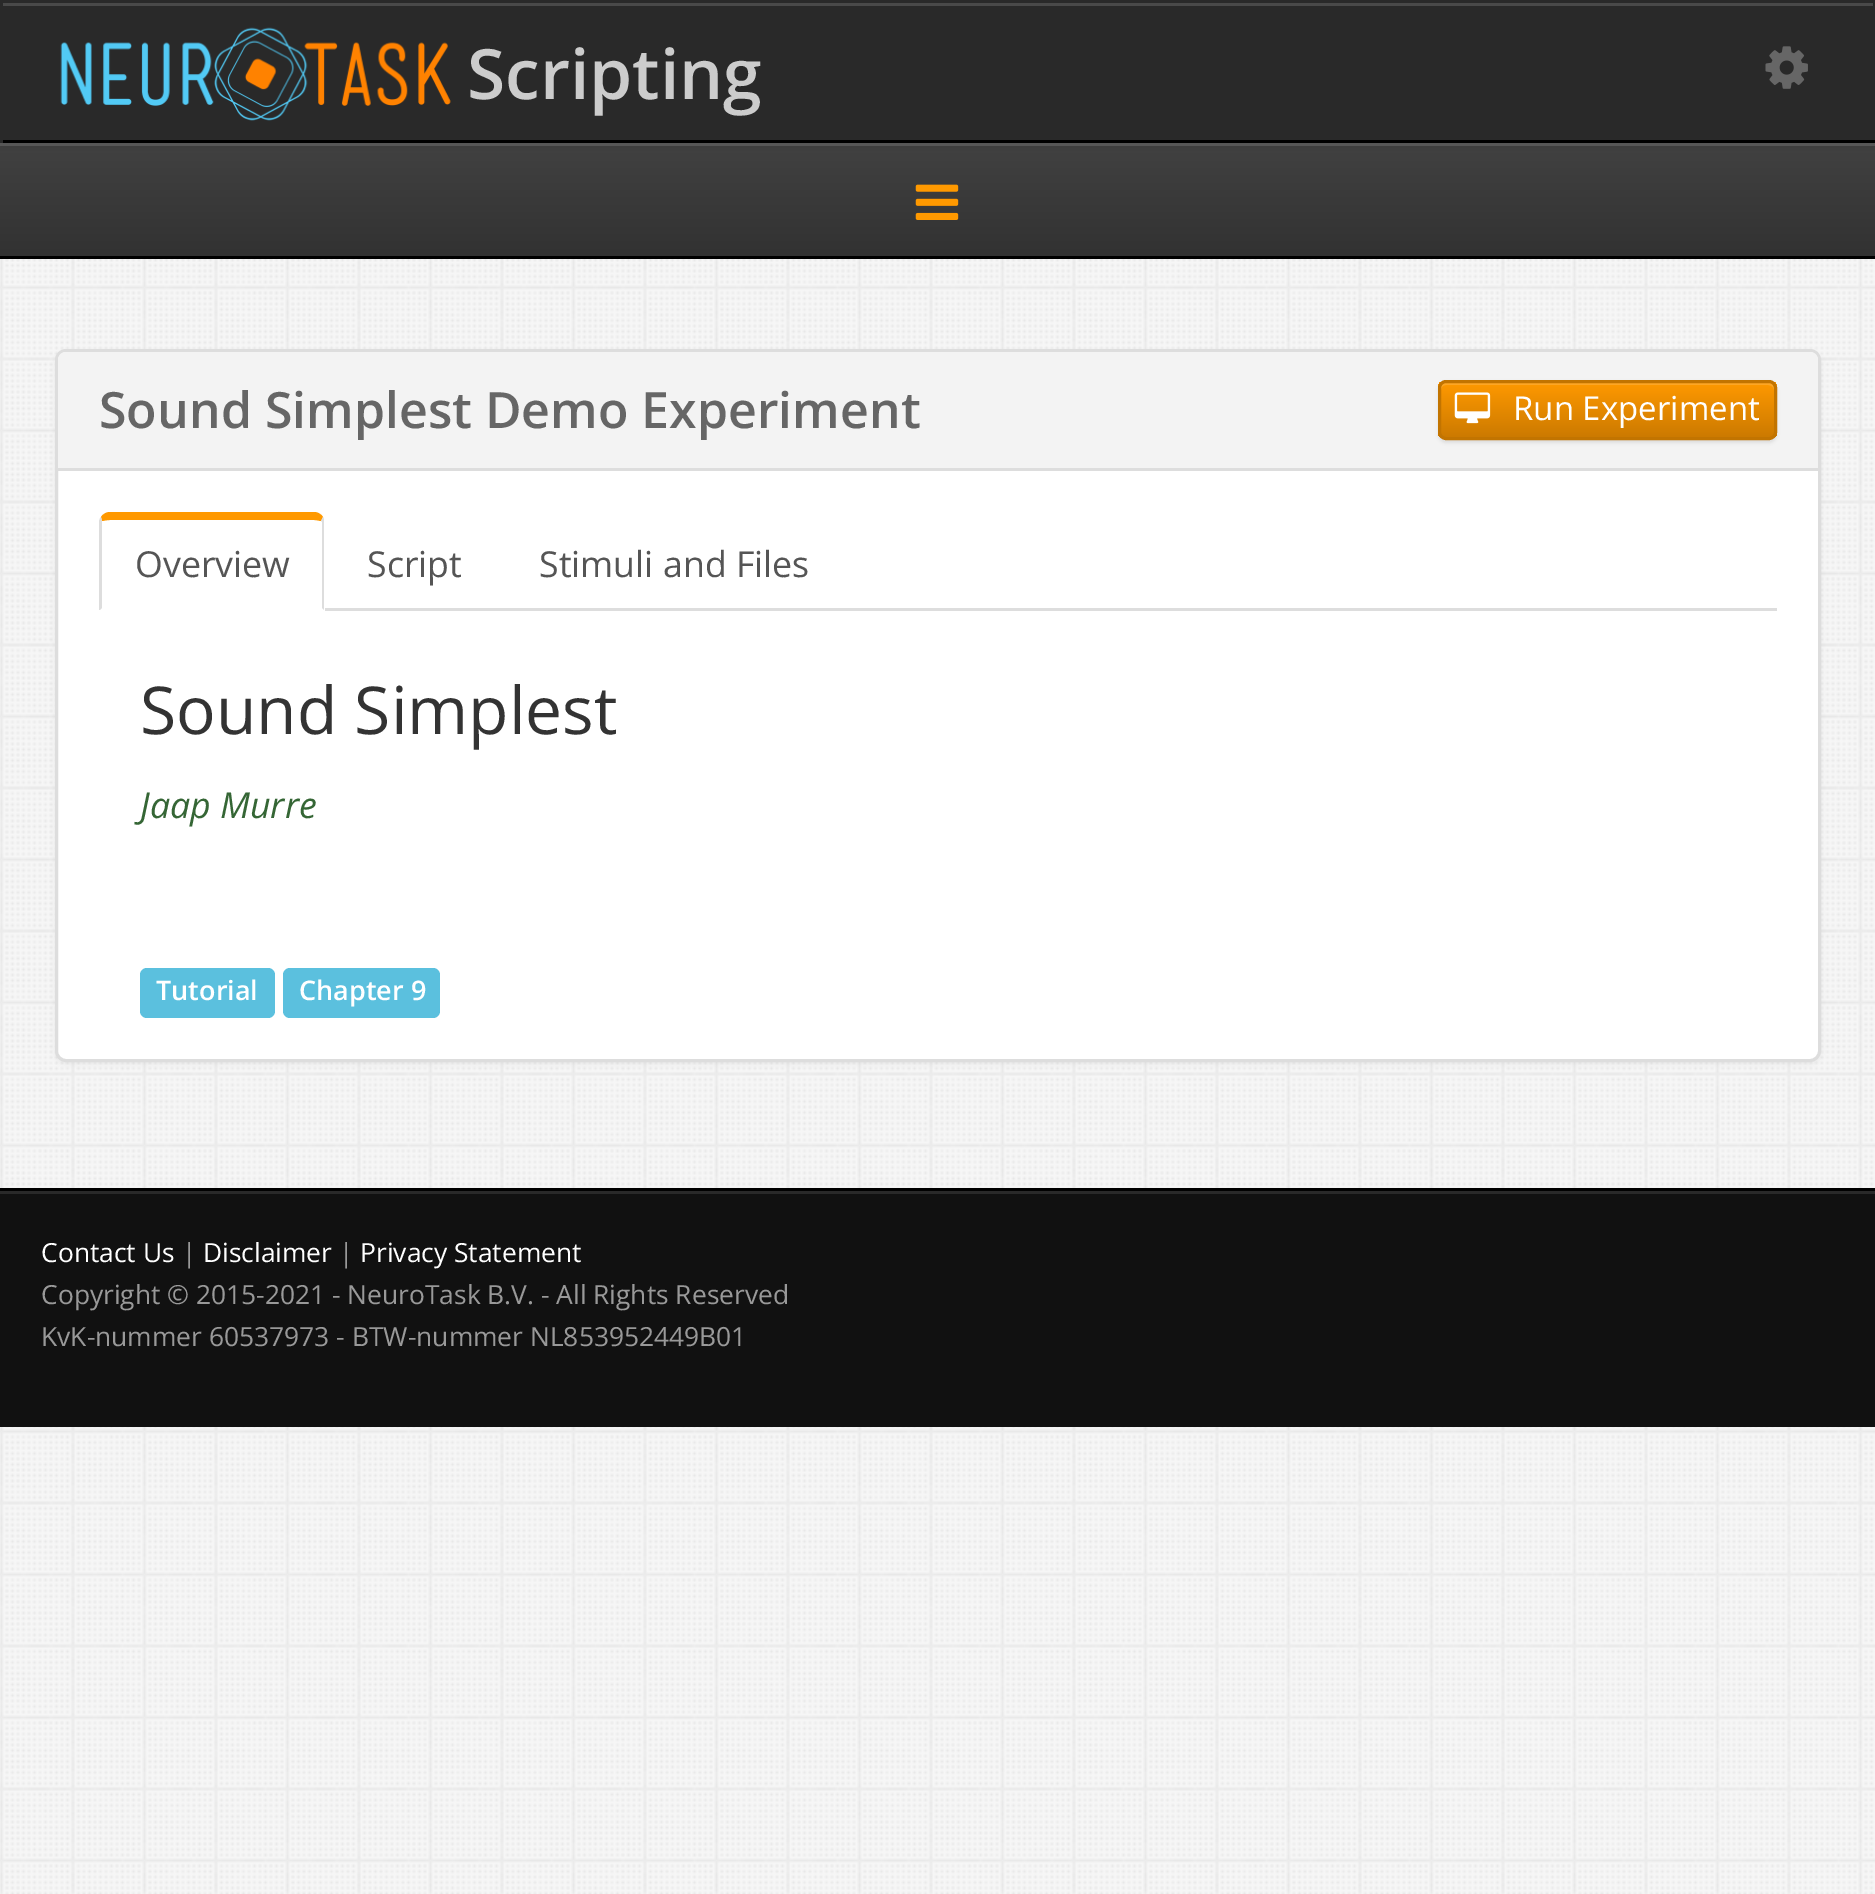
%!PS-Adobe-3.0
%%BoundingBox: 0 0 1875 1894
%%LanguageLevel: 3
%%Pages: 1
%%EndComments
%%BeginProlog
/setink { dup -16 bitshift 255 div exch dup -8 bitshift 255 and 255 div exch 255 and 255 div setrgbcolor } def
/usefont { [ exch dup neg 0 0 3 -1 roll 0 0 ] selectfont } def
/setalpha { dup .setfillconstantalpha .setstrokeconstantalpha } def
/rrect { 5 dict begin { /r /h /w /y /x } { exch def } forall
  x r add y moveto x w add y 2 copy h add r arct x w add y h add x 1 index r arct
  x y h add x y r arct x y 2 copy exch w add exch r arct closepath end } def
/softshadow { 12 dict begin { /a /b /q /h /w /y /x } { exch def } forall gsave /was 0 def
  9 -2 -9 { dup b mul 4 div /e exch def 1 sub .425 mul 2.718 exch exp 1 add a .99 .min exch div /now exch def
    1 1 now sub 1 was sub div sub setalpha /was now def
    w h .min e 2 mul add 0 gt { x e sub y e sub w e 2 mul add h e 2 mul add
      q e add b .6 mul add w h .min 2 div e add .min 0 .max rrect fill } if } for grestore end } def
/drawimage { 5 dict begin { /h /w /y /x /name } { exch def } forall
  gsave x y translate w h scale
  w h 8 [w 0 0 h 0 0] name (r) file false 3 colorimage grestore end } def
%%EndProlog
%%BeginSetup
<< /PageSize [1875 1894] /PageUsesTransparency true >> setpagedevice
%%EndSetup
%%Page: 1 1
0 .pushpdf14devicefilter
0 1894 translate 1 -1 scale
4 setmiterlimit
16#FFFFFF setink
0 0 1875 1894 rectfill
(img1.raw) 0 259 1875 1635 drawimage
16#595959 setink
0 143 1875 3 rectfill
gsave 0 146 moveto 1875 146 lineto 1875 256 lineto 0 256 lineto closepath clip newpath
<< /ShadingType 2 /ColorSpace /DeviceRGB /Coords [938 146 938 256] /Extend [true true] /Function << /FunctionType 2 /Domain [0 1] /C0 [0.255 0.255 0.255] /C1 [0.196 0.196 0.196] /N 1 >> >> shfill grestore
16#000000 setink
0 3 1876 143 0 7 0.07 softshadow
[
    [3 0 1872 140 16#292929]
    [3 3 1870 3 16#494949]
    [0 140 1875 3 16#000000]
    [0 0 3 143 16#292929]
] { aload pop setink rectfill } forall
(img2.raw) 60 27 391 94 drawimage
/OpenSans-SemiBold 69.5 usefont
16#CCCCCC setink
467 99 moveto (Scripting) show
(img3.raw) 1765 46 43 43 drawimage
16#000000 setink
0 256 1875 3 rectfill
(img4.raw) 915 184 44 36 drawimage
55 352 1766 712 11 3 0.05 softshadow
16#FFFFFF setink
56.5 350.5 1763 710 9.5 rrect gsave fill grestore
16#DDDDDD setink
3 setlinewidth
stroke
16#F3F3F3 setink
66 352 moveto 1810 352 lineto 1814.5 352 1818 355.5 1818 360 curveto 1818 470 lineto 58 470 lineto 58 360 lineto 58 355.5 61.5 352 66 352 curveto closepath fill
16#DDDDDD setink
58 468 1760 3 rectfill
/OpenSans-SemiBold 50 usefont
16#666666 setink
99 428 moveto (Sound Simplest Demo Experiment) show
16#000000 setink
1438 382 339 61 8 1.5 0.07 softshadow
gsave
1438 380 339 60 8 rrect clip newpath
gsave 1438 382 moveto 1777 382 lineto 1777 437 lineto 1438 437 lineto closepath clip newpath
<< /ShadingType 2 /ColorSpace /DeviceRGB /Coords [1607 382 1607 437] /Extend [true true] /Function << /FunctionType 2 /Domain [0 1] /C0 [1 0.6 0] /C1 [0.8 0.478 0] /N 1 >> >> shfill grestore
grestore
0.15 setalpha
16#FFFFFF setink
1446 385 moveto 1768 385 lineto 1771 385 1774 387 1774 390 curveto 1774 388 lineto 1774 385 1771 382 1768 382 curveto 1447 382 lineto 1444 382 1441 385 1441 388 curveto 1441 390 lineto 1441 387 1443 385 1446 385 curveto closepath fill
1 setalpha
16#C27400 setink
1439.5 381.5 336 57 6.5 rrect stroke
(img5.raw) 1454 392 37 32 drawimage
/OpenSans-Regular 33 usefont
16#FFFFFF setink
1513 420 moveto (Run Experiment) show
16#DDDDDD setink
325 608 1452 3 rectfill
16#FF9900 setink
110 512 moveto 106 512 103 514 101 517 curveto 102 521 lineto 103 521 106 520 110 520 curveto 314 520 lineto 317 520 320 521 321 521 curveto 323 517 lineto 321 514 318 512 314 512 curveto closepath fill
16#DDDDDD setink
324 610 moveto 324 522 lineto 324 520 324 518 323 517 curveto 321 521 lineto 322 522 lineto 322 608 lineto closepath fill
99 522 moveto 99 610 lineto 100 610 lineto 102 608 lineto 102 521 lineto 101 517 lineto 100 518 99 520 99 522 curveto closepath fill
/OpenSans-Regular 35.75 usefont
16#555555 setink
[
    [(Overview) 135 577]
    [(Script) 367 577]
    [(Stimuli and Files) 539 577]
] { aload pop moveto show } forall
/OpenSans-Regular 66 usefont
16#333333 setink
140 734 moveto (Sound Simplest) show
/OpenSans-Italic 35.75 usefont
16#356635 setink
140 818 moveto (Jaap Murre) show
16#5BC0DE setink
140 968 135 50 7 rrect fill
/OpenSans-SemiBold 27 usefont
16#FFFFFF setink
156 1000 moveto (Tutorial) show
16#5BC0DE setink
283 968 157 50 7 rrect fill
16#FFFFFF setink
299 1000 moveto (Chapter 9) show
[
    [0 1194 1875 233 16#111111]
    [0 1191 1875 3 16#292929]
    [0 1188 1875 3 16#000000]
] { aload pop setink rectfill } forall
/OpenSans-Regular 26.4 usefont
16#FFFFFF setink
41 1262 moveto (Contact Us) show
16#999999 setink
182 1262 moveto (|) show
16#FFFFFF setink
203 1262 moveto (Disclaimer) show
16#999999 setink
339 1262 moveto (|) show
16#FFFFFF setink
360 1262 moveto (Privacy Statement) show
16#999999 setink
41 1304 moveto (Copyright © 2015-2021 - NeuroTask B.V. - All Rights Reserved) show
41 1346 moveto (KvK-nummer 60537973 - BTW-nummer NL853952449B01) show
.poppdf14devicefilter showpage
%%EOF
